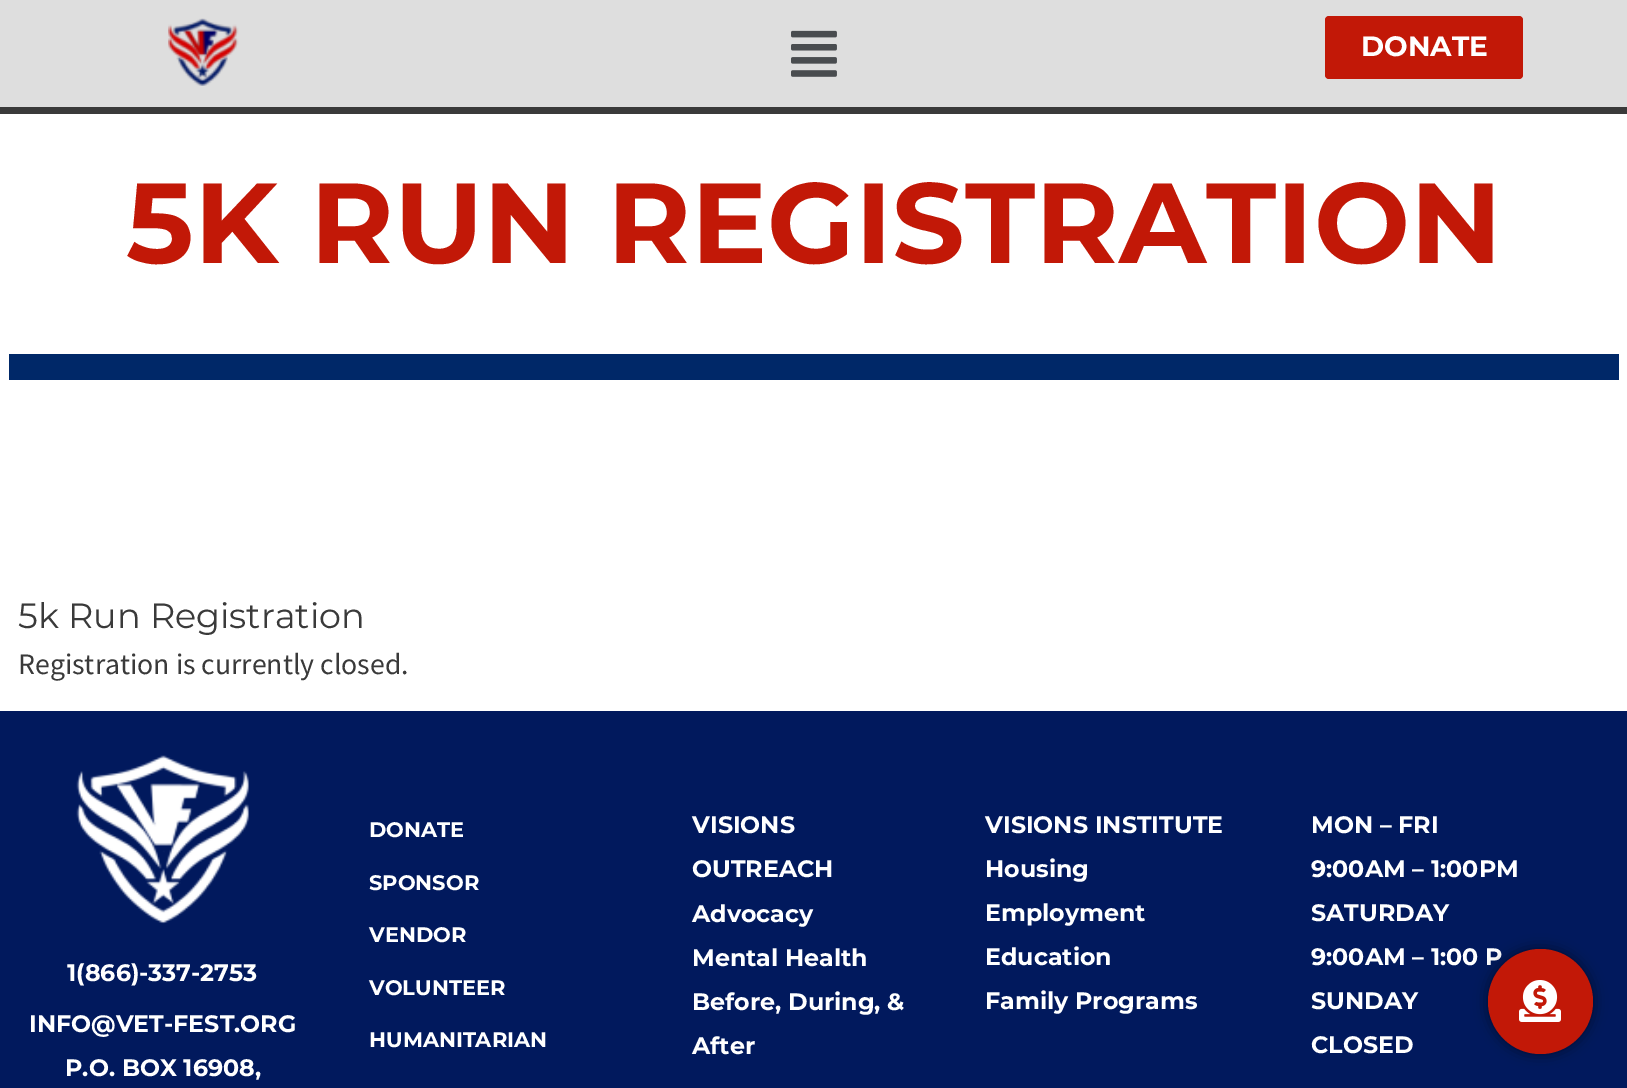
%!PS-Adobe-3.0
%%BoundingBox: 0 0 1627 1088
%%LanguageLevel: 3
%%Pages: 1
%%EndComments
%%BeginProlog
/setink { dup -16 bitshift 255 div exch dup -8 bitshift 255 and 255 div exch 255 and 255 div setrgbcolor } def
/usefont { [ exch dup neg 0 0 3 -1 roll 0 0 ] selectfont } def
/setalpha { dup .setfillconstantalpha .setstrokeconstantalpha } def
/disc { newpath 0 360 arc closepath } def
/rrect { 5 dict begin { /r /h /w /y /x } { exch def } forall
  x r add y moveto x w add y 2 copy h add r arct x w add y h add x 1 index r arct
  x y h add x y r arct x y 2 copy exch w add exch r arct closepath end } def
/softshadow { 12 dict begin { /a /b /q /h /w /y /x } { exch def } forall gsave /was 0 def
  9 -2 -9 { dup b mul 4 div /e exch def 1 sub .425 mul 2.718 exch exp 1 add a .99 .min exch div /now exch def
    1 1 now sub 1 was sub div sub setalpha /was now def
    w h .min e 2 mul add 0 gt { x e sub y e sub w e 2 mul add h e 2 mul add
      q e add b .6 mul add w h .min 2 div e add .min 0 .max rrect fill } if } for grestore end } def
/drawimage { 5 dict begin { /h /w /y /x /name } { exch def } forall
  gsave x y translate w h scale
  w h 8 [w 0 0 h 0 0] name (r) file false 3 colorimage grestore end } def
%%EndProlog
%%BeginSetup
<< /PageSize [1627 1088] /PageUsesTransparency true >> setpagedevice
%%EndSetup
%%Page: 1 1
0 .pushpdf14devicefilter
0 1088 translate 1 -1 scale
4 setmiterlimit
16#FFFFFF setink
0 0 1627 1088 rectfill
16#DEDEDE setink
0 0 1627 107 rectfill
16#3A3A3A setink
0 107 1627 7 rectfill
(img1.raw) 168 18 71 68 drawimage
(img2.raw) 791 30 46 47 drawimage
16#C21807 setink
1325 16 198 63 4 rrect fill
/Montserrat-Bold 28 usefont
16#FFFFFF setink
1361 56 moveto (DONATE) show
/Montserrat-Bold 113.75 usefont
16#C21807 setink
126 263 moveto (5K RUN REGISTRATION) show
16#002868 setink
9 354 1610 26 rectfill
/Montserrat-Regular 35 usefont
16#3A3A3A setink
18 628 moveto (5k Run Registration) show
/SourceSansPro-Regular 29.75 usefont
18 674 moveto (Registration is currently closed.) show
16#01195D setink
0 711 1627 377 rectfill
(img3.raw) 76 755 173 169 drawimage
/Montserrat-Bold 23.75 usefont
16#FFFFFF setink
[
    [(1\(866\)-337-2753) 67 981]
    [(INFO@VET-FEST.ORG) 29 1032]
    [(P.O. BOX 16908,) 65 1076]
] { aload pop moveto show } forall
/Montserrat-Bold 21 usefont
[
    [(DONATE) 369 837]
    [(SPONSOR) 369 890]
    [(VENDOR) 369 942]
    [(VOLUNTEER) 369 995]
    [(HUMANITARIAN) 369 1047]
] { aload pop moveto show } forall
/Montserrat-Bold 23.75 usefont
[
    [(VISIONS) 692 833]
    [(OUTREACH) 692 877]
    [(Advocacy) 692 922]
    [(Mental Health) 692 966]
    [(Before, During, &) 692 1010]
    [(After) 692 1054]
    [(VISIONS INSTITUTE) 985 833]
    [(Housing) 985 877]
    [(Employment) 985 921]
    [(Education) 985 965]
    [(Family Programs) 985 1009]
    [(MON – FRI) 1311 833]
    [(9:00AM – 1:00PM) 1311 877]
    [(SATURDAY) 1311 921]
    [(9:00AM – 1:00 P) 1311 965]
    [(SUNDAY) 1311 1009]
    [(CLOSED) 1311 1053]
] { aload pop moveto show } forall
16#000000 setink
1488 949 105 105 52.5 7 0.5 softshadow
16#C21807 setink
1540.5 1001.5 52.5 disc fill
(img4.raw) 1519 980 42 42 drawimage
.poppdf14devicefilter showpage
%%EOF
